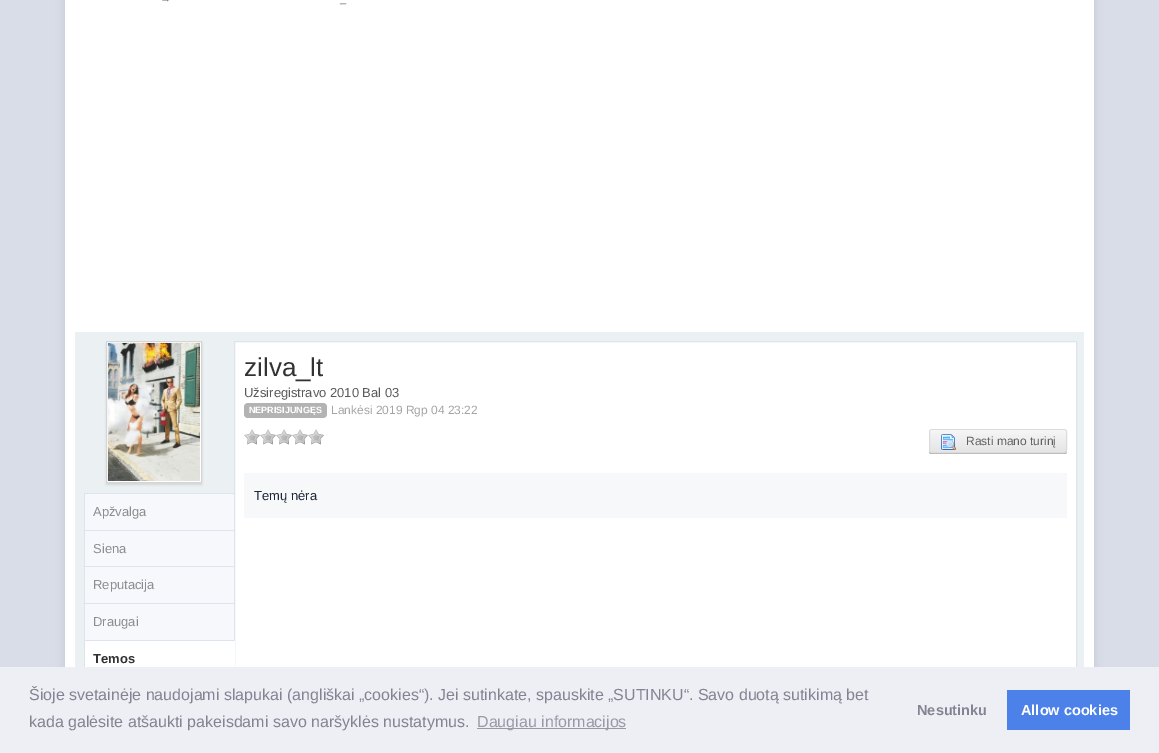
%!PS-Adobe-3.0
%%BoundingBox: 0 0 1159 753
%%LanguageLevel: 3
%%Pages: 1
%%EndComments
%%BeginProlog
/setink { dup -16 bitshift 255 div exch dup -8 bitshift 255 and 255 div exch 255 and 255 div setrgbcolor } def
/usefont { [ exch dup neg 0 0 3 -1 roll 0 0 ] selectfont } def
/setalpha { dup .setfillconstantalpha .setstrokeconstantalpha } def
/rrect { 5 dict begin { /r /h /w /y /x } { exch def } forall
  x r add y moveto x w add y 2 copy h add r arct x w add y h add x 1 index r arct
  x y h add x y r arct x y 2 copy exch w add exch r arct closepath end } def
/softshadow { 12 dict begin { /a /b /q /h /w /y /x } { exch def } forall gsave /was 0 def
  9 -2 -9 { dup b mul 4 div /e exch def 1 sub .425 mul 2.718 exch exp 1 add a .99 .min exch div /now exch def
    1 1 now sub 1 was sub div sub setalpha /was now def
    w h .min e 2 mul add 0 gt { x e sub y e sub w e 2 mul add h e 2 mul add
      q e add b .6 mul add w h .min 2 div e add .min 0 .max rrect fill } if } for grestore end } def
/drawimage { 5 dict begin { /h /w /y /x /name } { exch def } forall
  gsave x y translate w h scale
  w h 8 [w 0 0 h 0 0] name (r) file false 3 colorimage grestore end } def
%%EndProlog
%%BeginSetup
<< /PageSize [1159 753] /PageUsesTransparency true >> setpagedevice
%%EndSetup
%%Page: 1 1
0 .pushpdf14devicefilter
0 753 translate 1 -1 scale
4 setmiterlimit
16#D8DDE8 setink
0 0 1159 753 rectfill
16#000000 setink
65 -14 1029 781 0 4.5 0.1 softshadow
16#FFFFFF setink
65 0 1029 667 rectfill
/LiberationSans-Regular 11 usefont
16#777777 setink
160 2 moveto (→) show
340 2 moveto (_) show
16#EBF0F3 setink
75 332 1009 335 rectfill
16#FFFFFF setink
235 342 841 325 rectfill
16#DBE4EF setink
234.5 341.5 842 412 rectstroke
/LiberationSans-Regular 26 usefont
16#323232 setink
244 376 moveto (zilva_lt) show
/LiberationSans-Regular 13 usefont
16#5A5A5A setink
244 397 moveto (Užsiregistravo 2010 Bal 03) show
16#B3B3B3 setink
244 403 83 15 4 rrect fill
/LiberationSans-Bold 9 usefont
16#FFFFFF setink
249 413 moveto (NEPRISIJUNGĘS) show
/LiberationSans-Regular 12 usefont
16#A4A4A4 setink
331 414 moveto (Lankėsi 2019 Rgp 04 23:22) show
(img1.raw) 244 429 16 16 drawimage
(img1.raw) 260 429 16 16 drawimage
(img1.raw) 276 429 16 16 drawimage
(img1.raw) 292 429 16 16 drawimage
(img1.raw) 308 429 16 16 drawimage
16#B3B3B3 setink
929 450 moveto 929 452 929 454 931 454 curveto 1065 454 lineto 1067 454 1067 452 1067 450 curveto 1067 452 1066 453 1064 453 curveto 932 453 lineto 930 453 929 452 929 450 curveto closepath fill
gsave
929 429 138 24 3 rrect clip newpath
gsave 929 430 moveto 1067 430 lineto 1067 452 lineto 929 452 lineto closepath clip newpath
<< /ShadingType 2 /ColorSpace /DeviceRGB /Coords [930 430 930 452] /Extend [true true] /Function << /FunctionType 2 /Domain [0 1] /C0 [0.965 0.965 0.965] /C1 [0.898 0.898 0.898] /N 1 >> >> shfill grestore
grestore
16#FFFFFF setink
932 431 moveto 1064 431 lineto 1065 431 1066 432 1066 433 curveto 1066 432 1066 430 1064 430 curveto 932 430 lineto 930 430 930 432 930 433 curveto 930 432 931 431 932 431 curveto closepath fill
16#DBDBDB setink
929.5 429.5 137 23 2.5 rrect stroke
(img2.raw) 941 434 15 16 drawimage
16#616161 setink
966 445 moveto (Rasti mano turinį) show
16#F6F8FA setink
244 473 823 45 rectfill
/LiberationSans-Regular 13 usefont
16#1C2837 setink
254 500 moveto (Temų nėra) show
16#000000 setink
106 343 96 142 0 1 0.1 softshadow
16#FFFFFF setink
106.5 341.5 moveto 201.5 341.5 lineto 201.5 482.5 lineto 106.5 482.5 lineto closepath gsave fill grestore
16#D5D5D5 setink
stroke
(img3.raw) 108 343 92 138 drawimage
[
    [84 493 150 1 16#DBE4EF]
    [84 493 1 174 16#DBE4EF]
    [85 494 149 36 16#F6F8FB]
    [85 530 149 1 16#DBE4EF]
] { aload pop setink rectfill } forall
16#8D8D8D setink
93 516 moveto (Apžvalga) show
16#F6F8FB setink
85 531 149 35 rectfill
16#DBE4EF setink
85 566 149 1 rectfill
16#8D8D8D setink
93 553 moveto (Siena) show
16#F6F8FB setink
85 567 149 36 rectfill
16#DBE4EF setink
85 603 149 1 rectfill
16#8D8D8D setink
93 589 moveto (Reputacija) show
16#F6F8FB setink
85 604 149 36 rectfill
16#DBE4EF setink
85 640 149 1 rectfill
16#8D8D8D setink
93 626 moveto (Draugai) show
16#FFFFFF setink
85 641 150 26 rectfill
/LiberationSans-Bold 13 usefont
16#323232 setink
93 663 moveto (Temos) show
16#EDEFF5 setink
0 667 1159 86 rectfill
/LiberationSans-Regular 16 usefont
16#838391 setink
29 700 moveto (Šioje svetainėje naudojami slapukai \(angliškai „cookies“\). Jei sutinkate, spauskite „SUTINKU“. Savo duotą sutikimą bet) show
29 727 moveto (kada galėsite atšaukti pakeisdami savo naršyklės nustatymus.) show
16#9899A5 setink
477 728 149 1 rectfill
477 727 moveto (Daugiau informacijos) show
/LiberationSans-Bold 14.5 usefont
16#838391 setink
917 715 moveto (Nesutinku) show
16#4B81E8 setink
1007 690 123 40 rectfill
16#FFFFFF setink
1021 715 moveto (Allow cookies) show
.poppdf14devicefilter showpage
%%EOF
